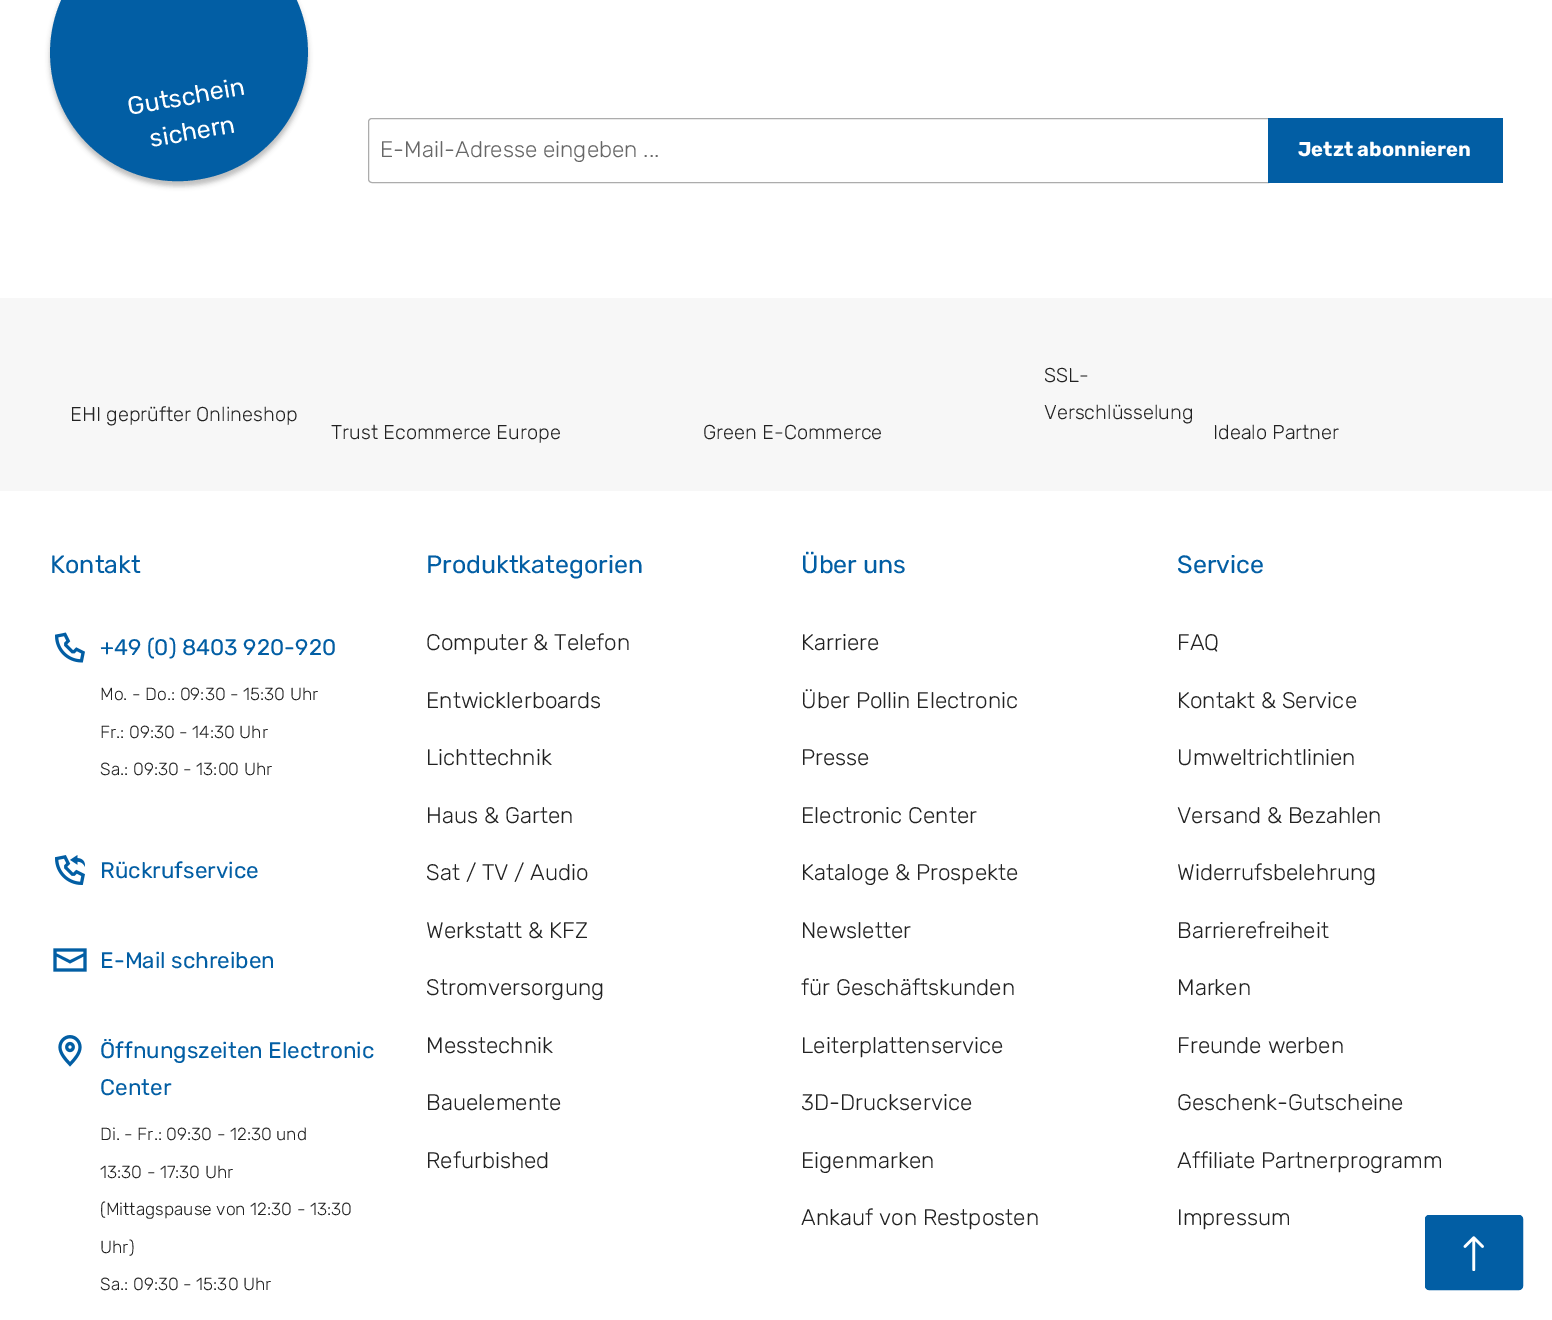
%!PS-Adobe-3.0
%%BoundingBox: 0 0 1552 1320
%%LanguageLevel: 3
%%Pages: 1
%%EndComments
%%BeginProlog
/setink { dup -16 bitshift 255 div exch dup -8 bitshift 255 and 255 div exch 255 and 255 div setrgbcolor } def
/usefont { [ exch dup neg 0 0 3 -1 roll 0 0 ] selectfont } def
/setalpha { dup .setfillconstantalpha .setstrokeconstantalpha } def
/rrect { 5 dict begin { /r /h /w /y /x } { exch def } forall
  x r add y moveto x w add y 2 copy h add r arct x w add y h add x 1 index r arct
  x y h add x y r arct x y 2 copy exch w add exch r arct closepath end } def
/softshadow { 12 dict begin { /a /b /q /h /w /y /x } { exch def } forall gsave /was 0 def
  9 -2 -9 { dup b mul 4 div /e exch def 1 sub .425 mul 2.718 exch exp 1 add a .99 .min exch div /now exch def
    1 1 now sub 1 was sub div sub setalpha /was now def
    w h .min e 2 mul add 0 gt { x e sub y e sub w e 2 mul add h e 2 mul add
      q e add b .6 mul add w h .min 2 div e add .min 0 .max rrect fill } if } for grestore end } def
/drawimage { 5 dict begin { /h /w /y /x /name } { exch def } forall
  gsave x y translate w h scale
  w h 8 [w 0 0 h 0 0] name (r) file false 3 colorimage grestore end } def
%%EndProlog
%%BeginSetup
<< /PageSize [1552 1320] /PageUsesTransparency true >> setpagedevice
%%EndSetup
%%Page: 1 1
0 .pushpdf14devicefilter
0 1320 translate 1 -1 scale
4 setmiterlimit
16#FFFFFF setink
0 0 1552 1320 rectfill
16#000000 setink
50 -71 258 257 128.5 2.5 0.25 softshadow
16#025EA4 setink
156 -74 moveto 226 -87 293 -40 306 30 curveto 318 100 271 167 201 179 curveto 131 192 64 145 52 75 curveto 40 5 86 -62 156 -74 curveto closepath fill
/Rubik-Regular 25 usefont
16#FFFFFF setink
gsave 129 115 translate -10 rotate 0 0 moveto (Gutschein) show grestore
gsave 151 147 translate -10 rotate 0 0 moveto (sichern) show grestore
16#ACACAC setink
372 118.5 moveto 1268.5 118.5 lineto 1268.5 182.5 lineto 372 182.5 lineto 370 182.5 368.5 181 368.5 179 curveto 368.5 122 lineto 368.5 120 370 118.5 372 118.5 curveto closepath stroke
/Rubik-Light 22.5 usefont
16#676767 setink
380 157 moveto (E-Mail-Adresse eingeben ...) show
16#025EA4 setink
1268 118 235 65 rectfill
/Rubik-Bold 20 usefont
16#FFFFFF setink
1298 156 moveto (Jetzt abonnieren) show
16#F7F7F7 setink
0 298 1552 193 rectfill
/Rubik-Light 20 usefont
16#222222 setink
[
    [(EHI geprüfter Onlineshop) 70 421]
    [(SSL-) 1044 382]
    [(Verschlüsselung) 1044 419]
    [(Trust Ecommerce Europe) 331 439]
    [(Green E-Commerce) 703 439]
    [(Idealo Partner) 1213 439]
] { aload pop moveto show } forall
/Rubik-Regular 25 usefont
16#025EA4 setink
50 573 moveto (Kontakt) show
(img1.raw) 55 632 30 31 drawimage
/Rubik-Regular 22.5 usefont
100 655 moveto (+49 \(0\) 8403 920-920) show
/Rubik-Light 17.5 usefont
16#222222 setink
[
    [(Mo. - Do.: 09:30 - 15:30 Uhr) 100 700]
    [(Fr.: 09:30 - 14:30 Uhr) 100 738]
    [(Sa.: 09:30 - 13:00 Uhr) 100 775]
] { aload pop moveto show } forall
(img2.raw) 55 855 30 30 drawimage
/Rubik-Regular 22.5 usefont
16#025EA4 setink
100 878 moveto (Rückrufservice) show
(img3.raw) 53 948 34 24 drawimage
100 968 moveto (E-Mail schreiben) show
(img4.raw) 58 1035 24 32 drawimage
100 1058 moveto (Öffnungszeiten Electronic) show
100 1095 moveto (Center) show
/Rubik-Light 17.5 usefont
16#222222 setink
[
    [(Di. - Fr.: 09:30 - 12:30 und) 100 1140]
    [(13:30 - 17:30 Uhr) 100 1178]
    [(\(Mittagspause von 12:30 - 13:30) 100 1215]
    [(Uhr\)) 100 1253]
    [(Sa.: 09:30 - 15:30 Uhr) 100 1290]
] { aload pop moveto show } forall
/Rubik-Regular 25 usefont
16#025EA4 setink
426 573 moveto (Produktkategorien) show
/Rubik-Light 22.5 usefont
16#222222 setink
[
    [(Computer & Telefon) 426 650]
    [(Entwicklerboards) 426 708]
    [(Lichttechnik) 426 765]
    [(Haus & Garten) 426 823]
    [(Sat / TV / Audio) 426 880]
    [(Werkstatt & KFZ) 426 938]
    [(Stromversorgung) 426 995]
    [(Messtechnik) 426 1053]
    [(Bauelemente) 426 1110]
    [(Refurbished) 426 1168]
] { aload pop moveto show } forall
/Rubik-Regular 25 usefont
16#025EA4 setink
801 573 moveto (Über uns) show
/Rubik-Light 22.5 usefont
16#222222 setink
[
    [(Karriere) 801 650]
    [(Über Pollin Electronic) 801 708]
    [(Presse) 801 765]
    [(Electronic Center) 801 823]
    [(Kataloge & Prospekte) 801 880]
    [(Newsletter) 801 938]
    [(für Geschäftskunden) 801 995]
    [(Leiterplattenservice) 801 1053]
    [(3D-Druckservice) 801 1110]
    [(Eigenmarken) 801 1168]
    [(Ankauf von Restposten) 801 1225]
] { aload pop moveto show } forall
/Rubik-Regular 25 usefont
16#025EA4 setink
1177 573 moveto (Service) show
/Rubik-Light 22.5 usefont
16#222222 setink
[
    [(FAQ) 1177 650]
    [(Kontakt & Service) 1177 708]
    [(Umweltrichtlinien) 1177 765]
    [(Versand & Bezahlen) 1177 823]
    [(Widerrufsbelehrung) 1177 880]
    [(Barrierefreiheit) 1177 938]
    [(Marken) 1177 995]
    [(Freunde werben) 1177 1053]
    [(Geschenk-Gutscheine) 1177 1110]
    [(Affiliate Partnerprogramm) 1177 1168]
    [(Impressum) 1177 1225]
] { aload pop moveto show } forall
16#025EA4 setink
1425.5 1215.5 97 74 3.5 rrect gsave fill grestore
stroke
(img5.raw) 1463 1236 21 35 drawimage
.poppdf14devicefilter showpage
%%EOF
